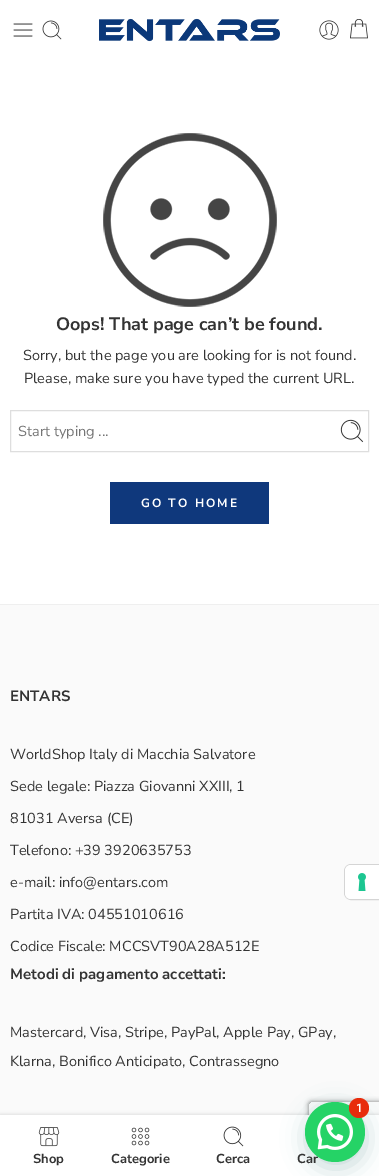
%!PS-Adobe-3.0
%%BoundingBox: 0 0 379 1176
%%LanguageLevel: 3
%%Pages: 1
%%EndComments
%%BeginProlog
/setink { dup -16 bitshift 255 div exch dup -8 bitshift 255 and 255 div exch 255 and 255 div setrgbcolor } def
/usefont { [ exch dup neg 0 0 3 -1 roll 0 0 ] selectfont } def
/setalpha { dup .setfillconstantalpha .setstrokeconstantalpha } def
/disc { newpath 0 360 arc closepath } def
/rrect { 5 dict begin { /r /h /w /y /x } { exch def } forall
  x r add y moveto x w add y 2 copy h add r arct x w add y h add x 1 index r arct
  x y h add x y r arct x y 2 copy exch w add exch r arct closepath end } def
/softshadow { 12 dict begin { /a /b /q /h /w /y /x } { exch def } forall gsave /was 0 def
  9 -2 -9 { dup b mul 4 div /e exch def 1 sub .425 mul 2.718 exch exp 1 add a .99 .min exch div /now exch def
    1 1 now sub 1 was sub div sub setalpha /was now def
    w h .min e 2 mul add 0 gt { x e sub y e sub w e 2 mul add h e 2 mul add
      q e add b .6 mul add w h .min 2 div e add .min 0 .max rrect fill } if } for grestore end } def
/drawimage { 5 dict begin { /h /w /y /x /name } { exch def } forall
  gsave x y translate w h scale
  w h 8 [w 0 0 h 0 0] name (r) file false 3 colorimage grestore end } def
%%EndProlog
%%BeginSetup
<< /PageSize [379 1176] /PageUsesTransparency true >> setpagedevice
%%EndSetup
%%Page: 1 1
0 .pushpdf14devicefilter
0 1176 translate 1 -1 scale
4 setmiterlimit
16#FFFFFF setink
0 0 379 1176 rectfill
(img1.raw) 13 23 20 14 drawimage
(img2.raw) 42 20 20 20 drawimage
(img3.raw) 99 18 181 24 drawimage
(img4.raw) 319 20 20 20 drawimage
(img5.raw) 350 19 18 20 drawimage
(img6.raw) 103 133 174 174 drawimage
/NunitoSans-Bold 18 usefont
16#333333 setink
56 330 moveto (Oops! That page can’t be found.) show
/NunitoSans-Regular 14.5 usefont
23 360 moveto (Sorry, but the page you are looking for is not found.) show
24 383 moveto (Please, make sure you have typed the current URL.) show
16#DEDEDE setink
10.5 410.5 358 41 rectstroke
16#757575 setink
18 436 moveto (Start typing ...) show
(img7.raw) 340 419 24 24 drawimage
16#0F387C setink
110 482 159 42 rectfill
/NunitoSans-Bold 12 usefont
16#FFFFFF setink
141 507 moveto 2 0 (GO TO HOME) ashow
16#FAFAFA setink
0 605 379 510 rectfill
16#EFEFEF setink
0 604 379 1 rectfill
/NunitoSans-Bold 15 usefont
16#333333 setink
10 701 moveto (ENTARS) show
/NunitoSans-Regular 14.5 usefont
[
    [(WorldShop Italy di Macchia Salvatore) 10 759]
    [(Sede legale: Piazza Giovanni XXIII, 1) 10 791]
    [(81031 Aversa \(CE\)) 10 823]
    [(Telefono: +39 3920635753) 10 855]
    [(e-mail: info@entars.com) 10 887]
    [(Partita IVA: 04551010616) 10 919]
    [(Codice Fiscale: MCCSVT90A28A512E) 10 951]
] { aload pop moveto show } forall
/NunitoSans-Bold 15 usefont
10 979 moveto (Metodi di pagamento accettati:) show
/NunitoSans-Regular 14.5 usefont
10 1037 moveto (Mastercard, Visa, Stripe, PayPal, Apple Pay, GPay,) show
10 1066 moveto (Klarna, Bonifico Anticipato, Contrassegno) show
16#D5D5D5 setink
351 864.5 moveto 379.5 864.5 lineto 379.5 899.5 lineto 351 899.5 lineto 347.5 899.5 344.5 896.5 344.5 893 curveto 344.5 871 lineto 344.5 867.5 347.5 864.5 351 864.5 curveto closepath stroke
16#FFFFFF setink
351 865 moveto 379 865 lineto 379 899 lineto 351 899 lineto 347.5 899 345 896.5 345 893 curveto 345 871 lineto 345 867.5 347.5 865 351 865 curveto closepath fill
(img8.raw) 358 873 8 18 drawimage
gsave
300 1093 moveto 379 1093 lineto 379 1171 lineto 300 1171 lineto closepath 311 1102 moveto 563 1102 lineto 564 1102 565 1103 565 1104 curveto 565 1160 lineto 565 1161 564 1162 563 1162 curveto 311 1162 lineto 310 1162 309 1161 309 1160 curveto 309 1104 lineto 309 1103 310 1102 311 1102 curveto closepath eoclip newpath
16#808080 setink
309 1102 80 60 2 2.5 1 softshadow
grestore
16#000000 setink
0 1114 379 61 0 1.5 0.1 softshadow
16#FFFFFF setink
0 1115 379 61 rectfill
16#075E54 setink
306 1108 60 60 30 12 0.24 softshadow
/NunitoSans-Bold 13 usefont
16#333333 setink
297 1163 moveto (Car) show
16#25D366 setink
335 1132 30 disc fill
(img9.raw) 317 1114 36 36 drawimage
16#E82C0C setink
359 1108 10 disc fill
/Roboto-SemiBold 12 usefont
16#FFFFFF setink
356 1112 moveto (1) show
(img10.raw) 38 1127 22 20 drawimage
/NunitoSans-Bold 13 usefont
16#333333 setink
33 1163 moveto (Shop) show
(img11.raw) 131 1127 19 19 drawimage
111 1163 moveto (Categorie) show
(img12.raw) 223 1126 21 21 drawimage
216 1163 moveto (Cerca) show
.poppdf14devicefilter showpage
%%EOF
